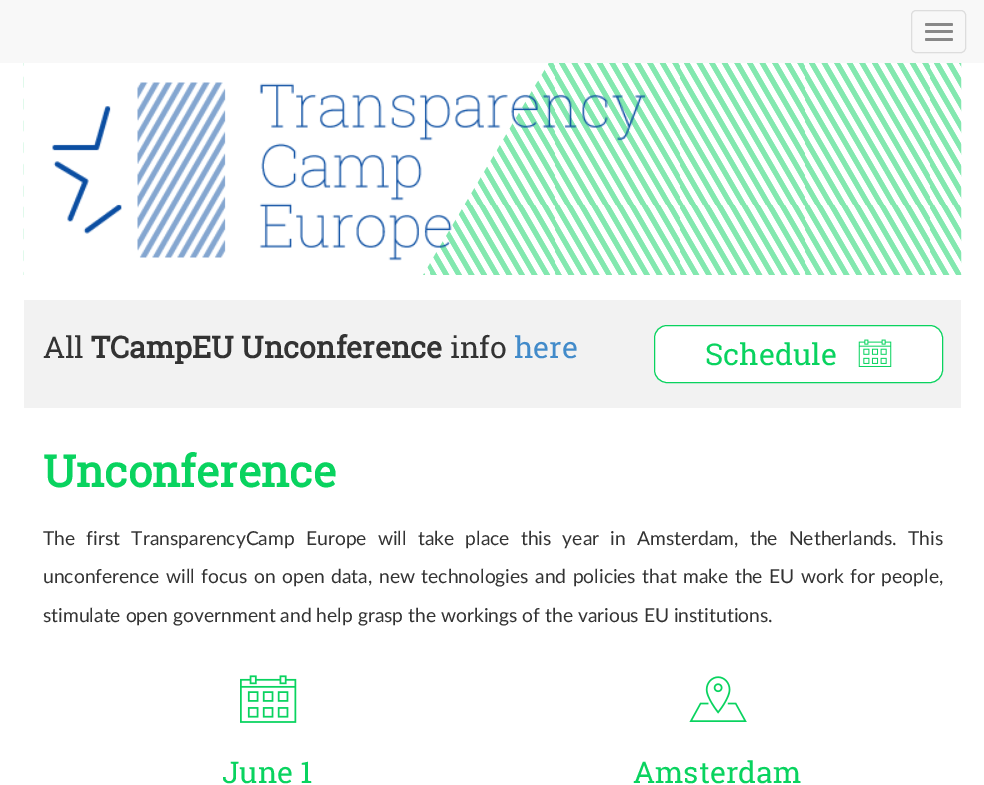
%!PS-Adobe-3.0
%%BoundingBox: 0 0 984 785
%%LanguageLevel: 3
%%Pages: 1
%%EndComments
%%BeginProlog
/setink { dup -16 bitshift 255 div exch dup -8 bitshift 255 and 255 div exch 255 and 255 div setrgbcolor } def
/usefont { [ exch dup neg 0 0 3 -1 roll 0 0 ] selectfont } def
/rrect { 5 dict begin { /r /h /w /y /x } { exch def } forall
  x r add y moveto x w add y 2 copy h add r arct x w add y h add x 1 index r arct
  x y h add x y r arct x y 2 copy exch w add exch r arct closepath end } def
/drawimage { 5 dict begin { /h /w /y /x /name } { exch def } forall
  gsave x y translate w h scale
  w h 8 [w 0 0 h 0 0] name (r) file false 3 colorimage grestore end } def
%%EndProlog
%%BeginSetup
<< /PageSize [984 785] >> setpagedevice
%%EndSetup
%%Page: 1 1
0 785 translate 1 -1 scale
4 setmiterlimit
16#FFFFFF setink
0 0 984 785 rectfill
(img1.raw) 23 63 939 212 drawimage
gsave
24 63 525 212 rectclip
549 62 moveto 24 62 lineto 24 305 lineto 405 305 lineto closepath fill
grestore
16#F8F8F8 setink
0 0 984 63 rectfill
16#DDDDDD setink
911.5 10.5 54 42 4.5 rrect stroke
16#888888 setink
925 23 28 3 1.5 rrect fill
925 30 28 3 1.5 rrect fill
925 38 28 3 1.5 rrect fill
(img2.raw) 52 82 594 179 drawimage
16#F2F2F2 setink
24 300 937 108 rectfill
/RobotoSlab-Regular 30 usefont
16#333333 setink
43 358 moveto (All) show
/RobotoSlab-Bold 30 usefont
91 358 moveto (TCampEU Unconference) show
/RobotoSlab-Regular 30 usefont
450 358 moveto (info) show
16#428BCA setink
514 358 moveto (here) show
16#FFFFFF setink
654.5 325.5 288 57 12.5 rrect gsave fill grestore
16#09D35F setink
stroke
705 365 moveto (Schedule) show
(img3.raw) 858 339 34 28 drawimage
/RobotoSlab-Bold 43.75 usefont
43 487 moveto (Unconference) show
/Lato-Regular 19.25 usefont
16#333333 setink
43 545 moveto 6.25 0 32 (The first TransparencyCamp Europe will take place this year in Amsterdam, the Netherlands. This) widthshow
43 583 moveto 1.6 0 32 (unconference will focus on open data, new technologies and policies that make the EU work for people,) widthshow
43 622 moveto (stimulate open government and help grasp the workings of the various EU institutions.) show
(img4.raw) 240 675 57 48 drawimage
/RobotoSlab-Regular 30 usefont
16#09D35F setink
222 783 moveto (June 1) show
(img5.raw) 689 676 58 46 drawimage
633 783 moveto (Amsterdam) show
showpage
%%EOF
